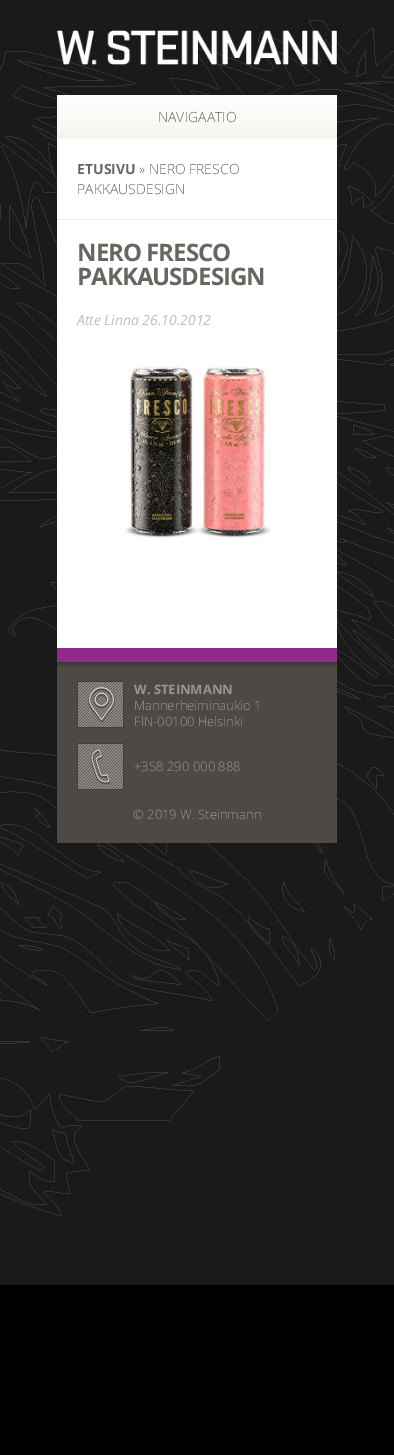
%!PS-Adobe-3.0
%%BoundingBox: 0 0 394 1455
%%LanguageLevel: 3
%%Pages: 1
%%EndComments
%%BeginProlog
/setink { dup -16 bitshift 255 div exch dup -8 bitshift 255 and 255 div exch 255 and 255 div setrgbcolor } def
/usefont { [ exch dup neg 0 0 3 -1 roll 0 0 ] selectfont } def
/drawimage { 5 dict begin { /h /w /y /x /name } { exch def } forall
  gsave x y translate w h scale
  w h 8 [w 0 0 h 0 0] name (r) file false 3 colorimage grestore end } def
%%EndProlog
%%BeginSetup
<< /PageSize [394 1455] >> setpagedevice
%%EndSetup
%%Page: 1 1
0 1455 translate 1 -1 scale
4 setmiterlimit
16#000000 setink
0 0 394 1455 rectfill
(img1.raw) 0 0 394 1285 drawimage
(img2.raw) 57 30 280 35 drawimage
16#FFFFFF setink
57 139 280 509 rectfill
gsave 57 95 moveto 337 95 lineto 337 139 lineto 57 139 lineto closepath clip newpath
<< /ShadingType 2 /ColorSpace /DeviceRGB /Coords [197 95 197 139] /Extend [true true] /Function << /FunctionType 2 /Domain [0 1] /C0 [1 0.996 0.996] /C1 [0.965 0.965 0.933] /N 1 >> >> shfill grestore
/OpenSans-Light 14 usefont
16#676761 setink
158 122 moveto (NAVIGAATIO) show
16#F0F0E5 setink
57 219 280 1 rectfill
/OpenSans-Bold 14 usefont
16#676761 setink
77 174 moveto (ETUSIVU) show
/OpenSans-Light 14 usefont
139 174 moveto (» NERO FRESCO) show
77 194 moveto (PAKKAUSDESIGN) show
/OpenSans-Bold 24 usefont
77 261 moveto -1 0 (NERO FRESCO) ashow
77 285 moveto -1 0 (PAKKAUSDESIGN) ashow
/OpenSans-Italic 14 usefont
16#C0C0B5 setink
77 325 moveto (Atte Linna 26.10.2012) show
(img3.raw) 124 365 147 176 drawimage
16#4D4945 setink
57 667 280 176 rectfill
(img4.raw) 57 648 280 19 drawimage
(img5.raw) 77 681 47 47 drawimage
/OpenSans-Bold 13 usefont
16#999591 setink
134 694 moveto (W. STEINMANN) show
/OpenSans-Light 13 usefont
134 710 moveto (Mannerheiminaukio 1) show
134 726 moveto (FIN-00100 Helsinki) show
(img6.raw) 77 743 47 47 drawimage
134 771 moveto (+358 290 000 888) show
133 819 moveto (© 2019 W. Steinmann) show
showpage
%%EOF
